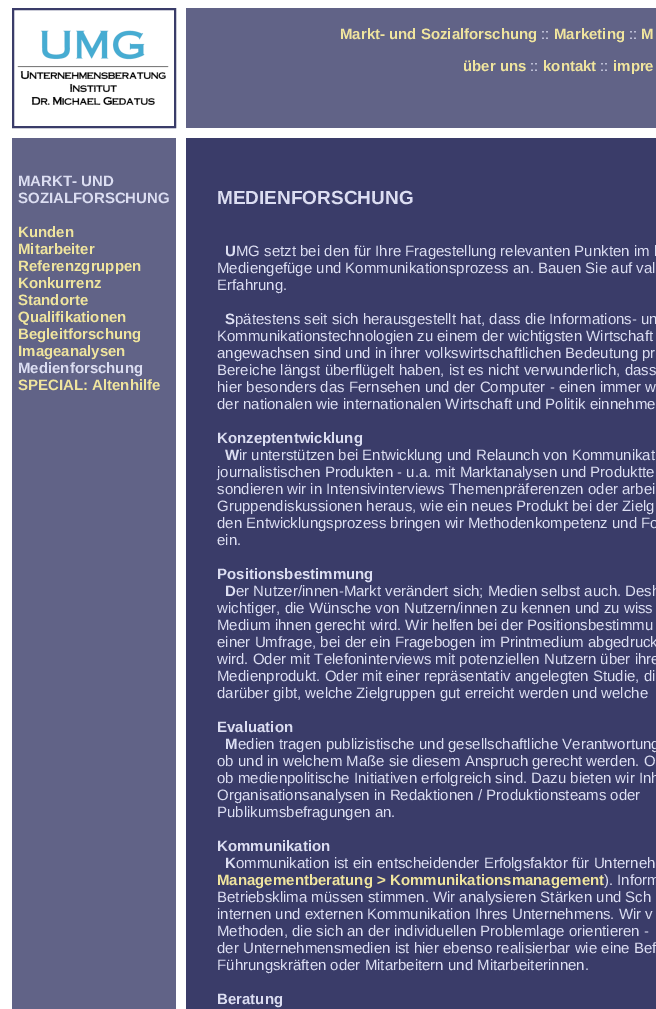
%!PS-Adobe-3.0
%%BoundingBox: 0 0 656 1009
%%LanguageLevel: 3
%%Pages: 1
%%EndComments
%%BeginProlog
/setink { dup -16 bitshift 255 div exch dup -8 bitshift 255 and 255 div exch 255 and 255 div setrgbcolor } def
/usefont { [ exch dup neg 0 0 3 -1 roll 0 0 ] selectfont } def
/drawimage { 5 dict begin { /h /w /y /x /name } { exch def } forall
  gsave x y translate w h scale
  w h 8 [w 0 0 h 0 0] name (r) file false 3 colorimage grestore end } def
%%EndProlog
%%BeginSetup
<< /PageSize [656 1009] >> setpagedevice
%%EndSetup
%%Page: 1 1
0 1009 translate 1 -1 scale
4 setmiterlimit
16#FFFFFF setink
0 0 656 1009 rectfill
16#3A3C69 setink
2 setlinewidth
13 9 162 118 rectstroke
(img1.raw) 17 30 152 75 drawimage
16#616387 setink
186 8 470 120 rectfill
/LiberationSans-Bold 15 usefont
16#F0E59E setink
340 39 moveto (Markt- und Sozialforschung) show
/LiberationSans-Regular 15 usefont
16#DCDEF2 setink
541 39 moveto (::) show
/LiberationSans-Bold 15 usefont
16#F0E59E setink
554 39 moveto (Marketing) show
/LiberationSans-Regular 15 usefont
16#DCDEF2 setink
629 39 moveto (::) show
/LiberationSans-Bold 15 usefont
16#F0E59E setink
641 39 moveto (M) show
463 71 moveto (über uns) show
/LiberationSans-Regular 15 usefont
16#DCDEF2 setink
530 71 moveto (::) show
/LiberationSans-Bold 15 usefont
16#F0E59E setink
543 71 moveto (kontakt) show
/LiberationSans-Regular 15 usefont
16#DCDEF2 setink
600 71 moveto (::) show
/LiberationSans-Bold 15 usefont
16#F0E59E setink
613 71 moveto (impre) show
16#616387 setink
12 138 164 871 rectfill
16#DCDEF2 setink
18 186 moveto (MARKT- UND) show
18 203 moveto (SOZIALFORSCHUNG) show
16#F0E59E setink
[
    [(Kunden) 18 237]
    [(Mitarbeiter) 18 254]
    [(Referenzgruppen) 18 271]
    [(Konkurrenz) 18 288]
    [(Standorte) 18 305]
    [(Qualifikationen) 18 322]
    [(Begleitforschung) 18 339]
    [(Imageanalysen) 18 356]
] { aload pop moveto show } forall
16#DCDEF2 setink
18 373 moveto (Medienforschung) show
16#F0E59E setink
18 390 moveto (SPECIAL: Altenhilfe) show
16#3A3C69 setink
186 138 470 871 rectfill
/LiberationSans-Bold 19 usefont
16#DCDEF2 setink
217 204 moveto (MEDIENFORSCHUNG) show
/LiberationSans-Bold 15 usefont
225 256 moveto (U) show
/LiberationSans-Regular 15 usefont
[
    [(MG setzt bei den für Ihre Fragestellung relevanten Punkten im k) 236 256]
    [(Mediengefüge und Kommunikationsprozess an. Bauen Sie auf val) 217 273]
    [(Erfahrung.) 217 290]
] { aload pop moveto show } forall
/LiberationSans-Bold 15 usefont
225 324 moveto (S) show
/LiberationSans-Regular 15 usefont
[
    [(pätestens seit sich herausgestellt hat, dass die Informations- un) 235 324]
    [(Kommunikationstechnologien zu einem der wichtigsten Wirtschaft) 217 341]
    [(angewachsen sind und in ihrer volkswirtschaftlichen Bedeutung pr) 217 358]
    [(Bereiche längst überflügelt haben, ist es nicht verwunderlich, dass) 217 375]
    [(hier besonders das Fernsehen und der Computer - einen immer w) 217 392]
    [(der nationalen wie internationalen Wirtschaft und Politik einnehme) 217 409]
] { aload pop moveto show } forall
/LiberationSans-Bold 15 usefont
217 443 moveto (Konzeptentwicklung) show
225 460 moveto (W) show
/LiberationSans-Regular 15 usefont
[
    [(ir unterstützen bei Entwicklung und Relaunch von Kommunikat) 239 460]
    [(journalistischen Produkten - u.a. mit Marktanalysen und Produktte) 217 477]
    [(sondieren wir in Intensivinterviews Themenpräferenzen oder arbei) 217 494]
    [(Gruppendiskussionen heraus, wie ein neues Produkt bei der Zielg) 217 511]
    [(den Entwicklungsprozess bringen wir Methodenkompetenz und Fo) 217 528]
    [(ein.) 217 545]
] { aload pop moveto show } forall
/LiberationSans-Bold 15 usefont
217 579 moveto (Positionsbestimmung) show
225 596 moveto (D) show
/LiberationSans-Regular 15 usefont
[
    [(er Nutzer/innen-Markt verändert sich; Medien selbst auch. Desh) 236 596]
    [(wichtiger, die Wünsche von Nutzern/innen zu kennen und zu wiss) 217 613]
    [(Medium ihnen gerecht wird. Wir helfen bei der Positionsbestimmu) 217 630]
    [(einer Umfrage, bei der ein Fragebogen im Printmedium abgedruck) 217 647]
    [(wird. Oder mit Telefoninterviews mit potenziellen Nutzern über ihre) 217 664]
    [(Medienprodukt. Oder mit einer repräsentativ angelegten Studie, di) 217 681]
    [(darüber gibt, welche Zielgruppen gut erreicht werden und welche) 217 698]
] { aload pop moveto show } forall
/LiberationSans-Bold 15 usefont
217 732 moveto (Evaluation) show
225 749 moveto (M) show
/LiberationSans-Regular 15 usefont
[
    [(edien tragen publizistische und gesellschaftliche Verantwortung) 238 749]
    [(ob und in welchem Maße sie diesem Anspruch gerecht werden. O) 217 766]
    [(ob medienpolitische Initiativen erfolgreich sind. Dazu bieten wir Inh) 217 783]
    [(Organisationsanalysen in Redaktionen / Produktionsteams oder) 217 800]
    [(Publikumsbefragungen an.) 217 817]
] { aload pop moveto show } forall
/LiberationSans-Bold 15 usefont
217 851 moveto (Kommunikation) show
225 868 moveto (K) show
/LiberationSans-Regular 15 usefont
236 868 moveto (ommunikation ist ein entscheidender Erfolgsfaktor für Unterneh) show
/LiberationSans-Bold 15 usefont
16#F0E59E setink
217 885 moveto (Managementberatung > Kommunikationsmanagement) show
/LiberationSans-Regular 15 usefont
16#DCDEF2 setink
[
    [(\). Inform) 604 885]
    [(Betriebsklima müssen stimmen. Wir analysieren Stärken und Sch) 217 902]
    [(internen und externen Kommunikation Ihres Unternehmens. Wir v) 217 919]
    [(Methoden, die sich an der individuellen Problemlage orientieren -) 217 936]
    [(der Unternehmensmedien ist hier ebenso realisierbar wie eine Bef) 217 953]
    [(Führungskräften oder Mitarbeitern und Mitarbeiterinnen.) 217 970]
] { aload pop moveto show } forall
/LiberationSans-Bold 15 usefont
217 1004 moveto (Beratung) show
showpage
%%EOF
